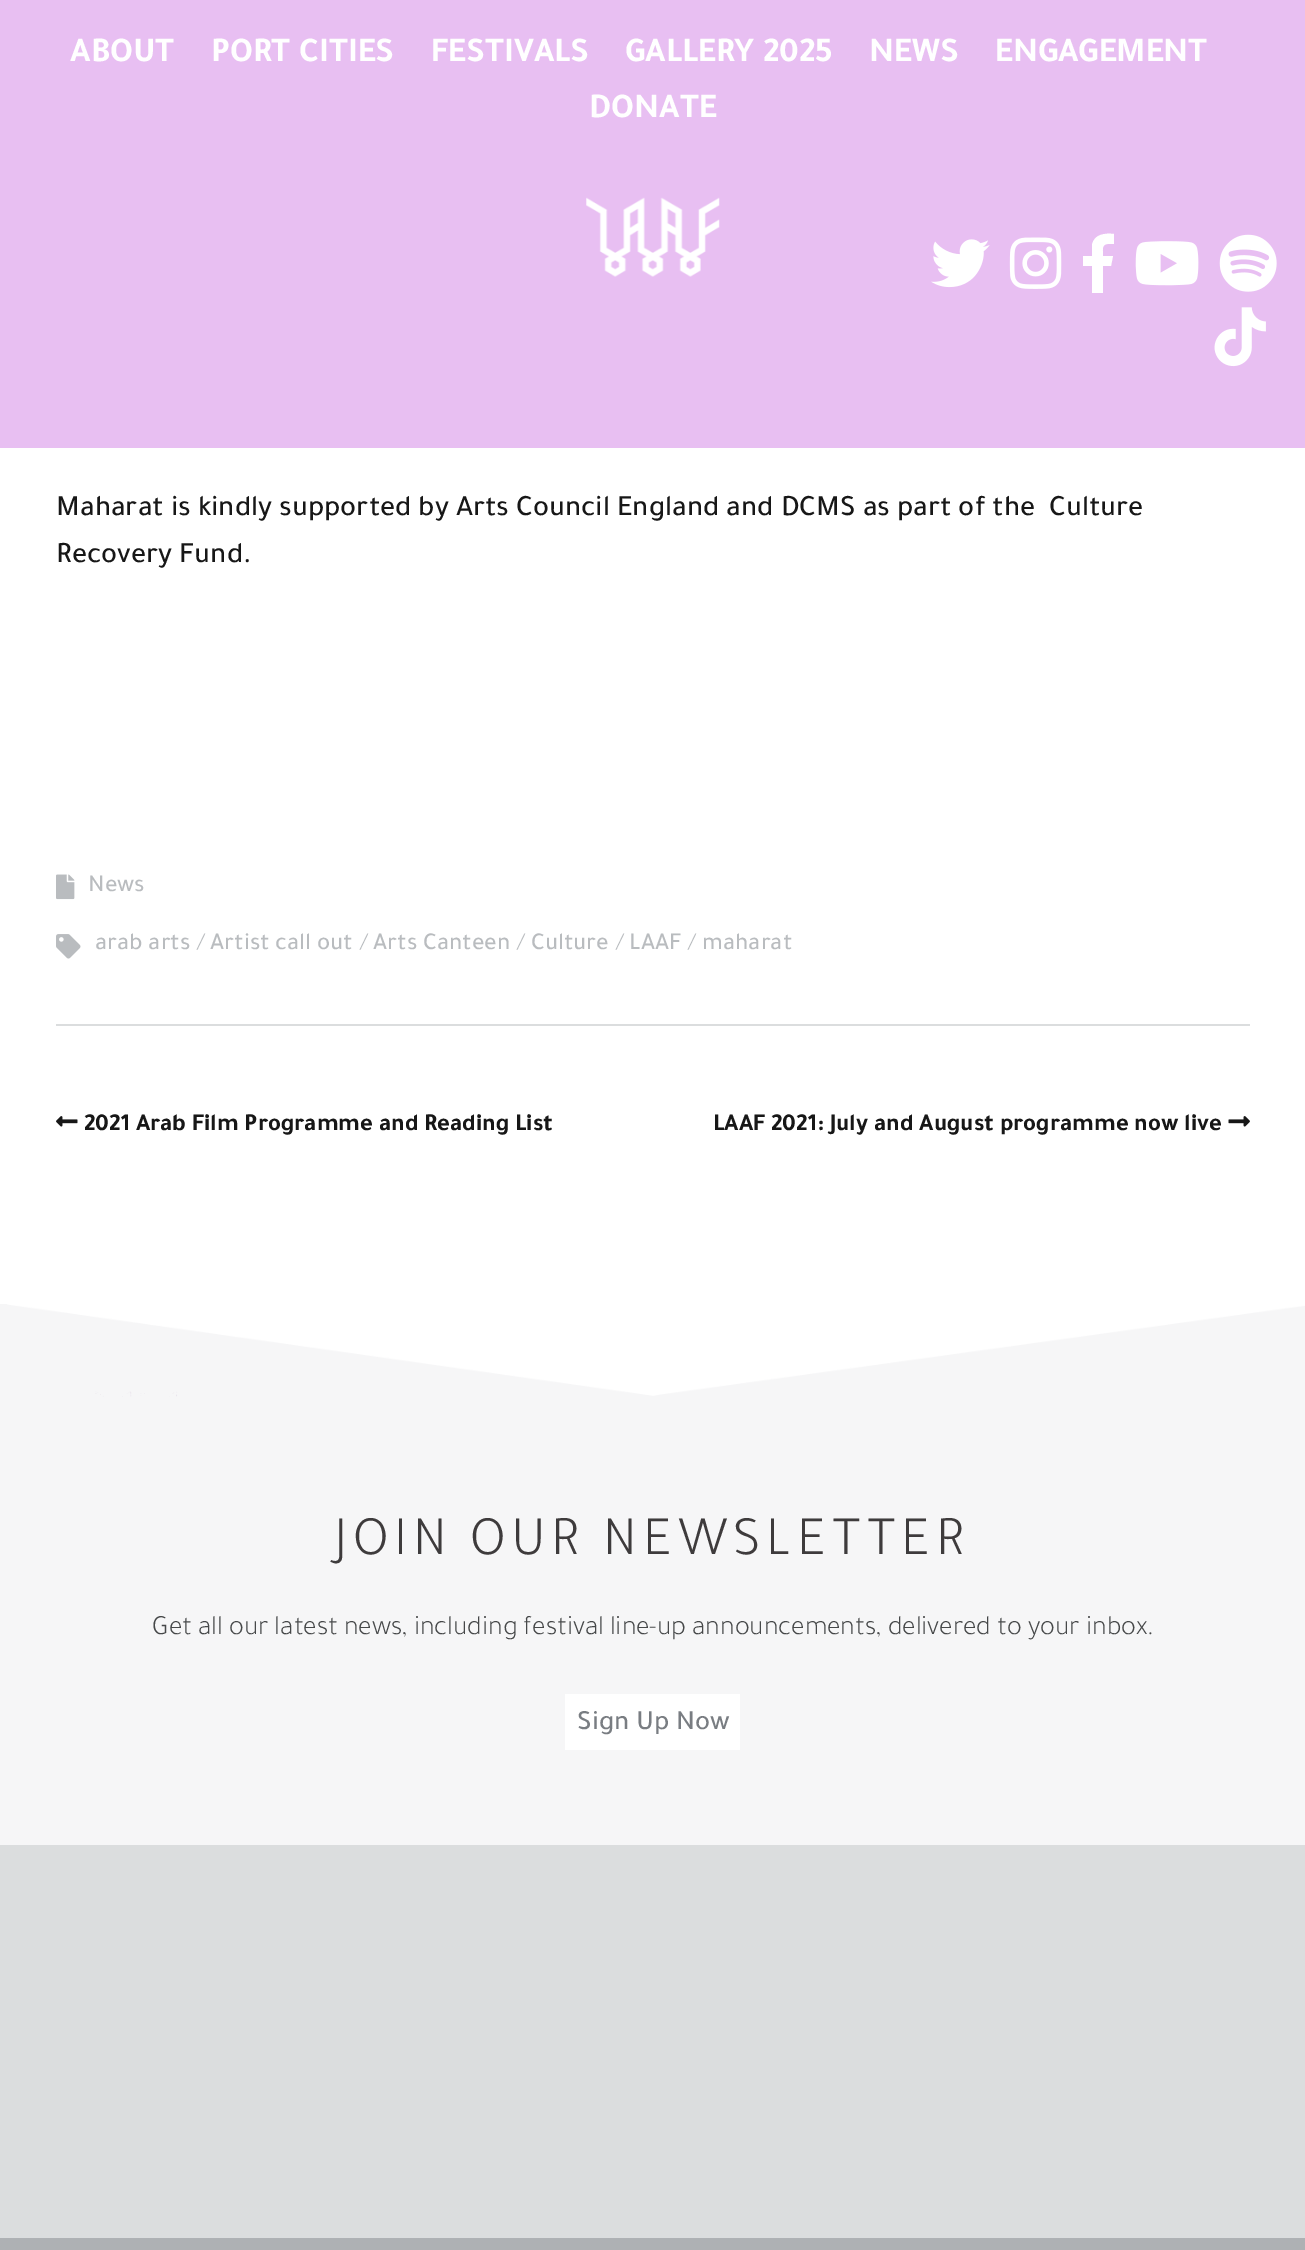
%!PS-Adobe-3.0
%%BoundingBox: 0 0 1305 2250
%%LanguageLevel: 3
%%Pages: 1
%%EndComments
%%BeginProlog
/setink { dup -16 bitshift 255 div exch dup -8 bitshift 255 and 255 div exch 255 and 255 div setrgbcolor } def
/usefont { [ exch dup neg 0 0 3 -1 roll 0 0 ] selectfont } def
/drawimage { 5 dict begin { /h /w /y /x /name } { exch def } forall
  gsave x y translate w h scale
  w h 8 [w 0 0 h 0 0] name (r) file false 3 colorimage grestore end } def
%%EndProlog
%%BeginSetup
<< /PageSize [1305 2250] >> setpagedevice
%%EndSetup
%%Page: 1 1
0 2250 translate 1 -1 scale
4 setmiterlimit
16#FFFFFF setink
0 0 1305 2250 rectfill
16#E8BFF2 setink
0 0 1305 448 rectfill
/Tajawal-Bold 35 usefont
16#FFFFFF setink
[
    [(ABOUT) 70 61]
    [(PORT CITIES) 211 61]
    [(FESTIVALS) 431 61]
    [(GALLERY 2025) 625 61]
    [(NEWS) 869 61]
    [(ENGAGEMENT) 995 61]
    [(DONATE) 589 117]
] { aload pop moveto show } forall
(img1.raw) 586 197 134 80 drawimage
(img2.raw) 931 239 59 49 drawimage
(img3.raw) 1009 237 53 52 drawimage
1108 244 moveto 1101 244 1103 251 1103 256 curveto 1113 256 lineto 1111 266 lineto 1103 266 lineto 1103 293 lineto 1092 293 lineto 1092 266 lineto 1083 266 lineto 1083 256 lineto 1092 256 lineto 1092 245 lineto 1094 234 1105 233 1114 234 curveto 1114 244 lineto closepath fill
(img4.raw) 1135 241 64 45 drawimage
(img5.raw) 1219 234 58 58 drawimage
(img6.raw) 1214 307 52 60 drawimage
16#DBDDDE setink
56 1024 1194 2 rectfill
/Tajawal-Medium 29.75 usefont
16#171717 setink
56 515 moveto (Maharat is kindly supported by Arts Council England and DCMS as part of the  Culture) show
56 562 moveto (Recovery Fund.) show
(img7.raw) 56 874 19 26 drawimage
/Tajawal-Medium 24.5 usefont
16#B9BCBF setink
88 891 moveto (News) show
(img8.raw) 56 934 25 25 drawimage
95 949 moveto (arab arts) show
/Tajawal-Light 24.5 usefont
197 949 moveto (/) show
/Tajawal-Medium 24.5 usefont
210 949 moveto (Artist call out) show
/Tajawal-Light 24.5 usefont
360 949 moveto (/) show
/Tajawal-Medium 24.5 usefont
373 949 moveto (Arts Canteen) show
/Tajawal-Light 24.5 usefont
517 949 moveto (/) show
/Tajawal-Medium 24.5 usefont
531 949 moveto (Culture) show
/Tajawal-Light 24.5 usefont
616 949 moveto (/) show
/Tajawal-Medium 24.5 usefont
629 949 moveto (LAAF) show
/Tajawal-Light 24.5 usefont
688 949 moveto (/) show
/Tajawal-Medium 24.5 usefont
702 949 moveto (maharat) show
(img9.raw) 56 1116 22 11 drawimage
/Tajawal-Bold 24.5 usefont
16#171717 setink
84 1130 moveto (2021 Arab Film Programme and Reading List) show
713 1130 moveto (LAAF 2021: July and August programme now live) show
(img10.raw) 1228 1116 22 11 drawimage
16#F6F6F7 setink
0 1304 1305 541 rectfill
(img11.raw) 7 1304 1298 93 drawimage
/Tajawal-Light 56 usefont
16#3E3B3C setink
335 1554 moveto 5.6 0 (JOIN OUR NEWSLETTER) ashow
/Tajawal-Light 28 usefont
16#464849 setink
152 1634 moveto (Get all our latest news, including festival line-up announcements, delivered to your inbox.) show
16#FFFFFF setink
565 1694 175 56 rectfill
/Tajawal-Medium 28 usefont
16#797D82 setink
577 1729 moveto (Sign Up Now) show
16#DBDDDE setink
0 1845 1305 393 rectfill
16#AEB1B4 setink
0 2238 1305 12 rectfill
showpage
%%EOF
